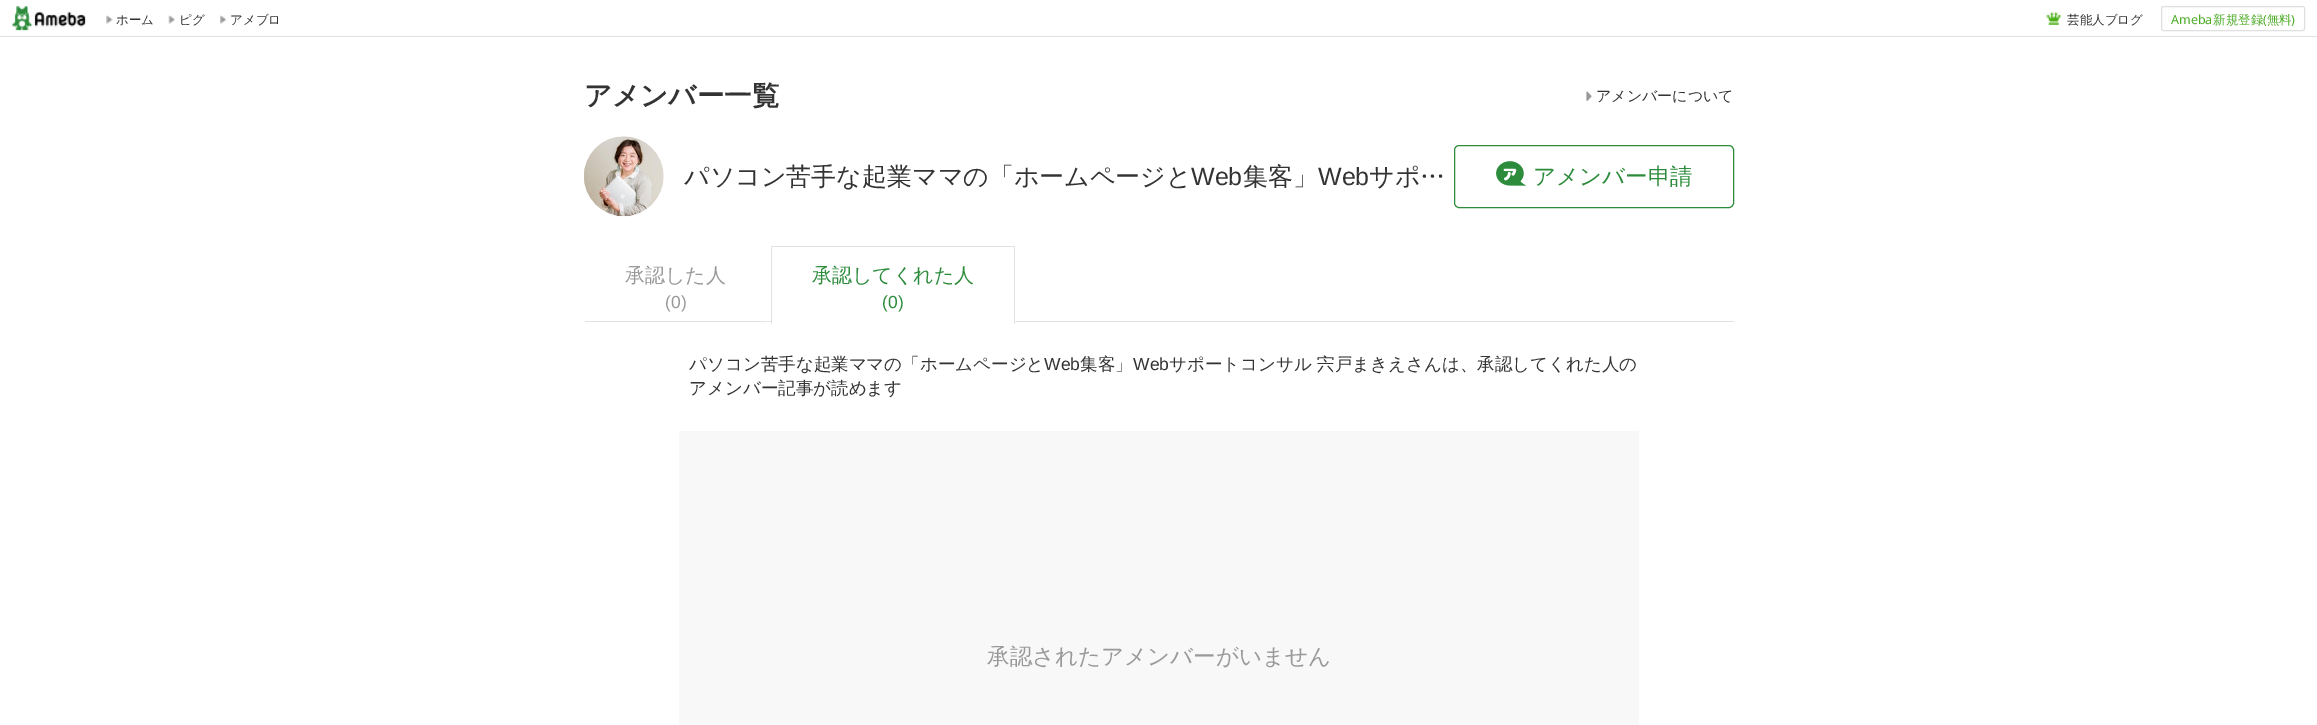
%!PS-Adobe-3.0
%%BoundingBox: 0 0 2317 725
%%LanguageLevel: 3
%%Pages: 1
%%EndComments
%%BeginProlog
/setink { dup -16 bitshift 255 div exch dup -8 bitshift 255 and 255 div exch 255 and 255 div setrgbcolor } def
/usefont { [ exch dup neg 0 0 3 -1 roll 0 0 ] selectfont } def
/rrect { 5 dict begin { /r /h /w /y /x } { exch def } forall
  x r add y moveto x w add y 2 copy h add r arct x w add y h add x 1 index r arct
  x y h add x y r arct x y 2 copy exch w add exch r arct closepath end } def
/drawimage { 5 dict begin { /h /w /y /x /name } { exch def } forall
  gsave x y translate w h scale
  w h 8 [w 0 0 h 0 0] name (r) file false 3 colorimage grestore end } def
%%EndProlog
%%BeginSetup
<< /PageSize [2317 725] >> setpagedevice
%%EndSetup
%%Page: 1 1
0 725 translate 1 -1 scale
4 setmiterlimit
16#FFFFFF setink
0 0 2317 725 rectfill
16#E0E0E0 setink
0 36 2317 1 rectfill
(img1.raw) 12 6 74 25 drawimage
(img2.raw) 106 15 7 9 drawimage
/WenQuanYiZenHei-Medium 12.5 usefont
16#333333 setink
116 24 moveto (ホーム) show
(img3.raw) 168 15 7 9 drawimage
179 24 moveto (ピグ) show
(img4.raw) 220 15 7 9 drawimage
230 24 moveto (アメブロ) show
(img5.raw) 2046 12 16 13 drawimage
2067 24 moveto (芸能人ブログ) show
16#E0E0E0 setink
2161.5 6.5 143 24 2 rrect stroke
/NotoSans-Regular 12.5 usefont
16#4CAC26 setink
2171 24 moveto (Ameba) show
/WenQuanYiZenHei-Medium 12.5 usefont
2213 24 moveto (新規登録 無料) show
/NotoSans-Regular 12.5 usefont
2263 24 moveto (\() show
2291 24 moveto (\)) show
/WenQuanYiZenHei-Bold 27.5 usefont
16#333333 setink
584 105 moveto (アメンバー一覧) show
(img6.raw) 1586 91 6 10 drawimage
/WenQuanYiZenHei-Medium 15 usefont
1596 101 moveto (アメンバーについて) show
(img7.raw) 583 136 81 81 drawimage
/WenQuanYiZenHei-Medium 25 usefont
684 185 moveto (パソコン苦手な起業ママの「ホームページと) show
/LiberationSans-Regular 25 usefont
1191 185 moveto (Web) show
/WenQuanYiZenHei-Medium 25 usefont
1243 185 moveto (集客」) show
/LiberationSans-Regular 25 usefont
1318 185 moveto (Web) show
/WenQuanYiZenHei-Medium 25 usefont
1369 185 moveto -1 0 32 (サポ…) widthshow
16#2D8C3C setink
1454.5 145.5 279 62 4.5 rrect stroke
(img8.raw) 1496 161 31 25 drawimage
/WenQuanYiZenHei-Medium 22.5 usefont
1533 184 moveto (アメンバー申請) show
[
    [584 321 1150 1 16#E2E2E2]
    [766 321 1 2 16#FFFFFF]
    [584 321 1 2 16#FFFFFF]
] { aload pop setink rectfill } forall
/WenQuanYiZenHei-Medium 20 usefont
16#999999 setink
625 282 moveto (承認した人) show
/LiberationSans-Regular 17.5 usefont
665 308 moveto (\(0\)) show
[
    [772 321 242 1 16#FFFFFF]
    [771 246 244 1 16#E2E2E2]
    [1014 246 1 78 16#E2E2E2]
    [771 246 1 78 16#E2E2E2]
] { aload pop setink rectfill } forall
/WenQuanYiZenHei-Medium 20 usefont
16#2D8C3C setink
812 282 moveto (承認してくれた人) show
/LiberationSans-Regular 17.5 usefont
882 308 moveto (\(0\)) show
/WenQuanYiZenHei-Medium 17.5 usefont
16#333333 setink
689 370 moveto (パソコン苦手な起業ママの「ホームページと) show
/LiberationSans-Regular 17.5 usefont
1044 370 moveto (Web) show
/WenQuanYiZenHei-Medium 17.5 usefont
1080 370 moveto (集客」) show
/LiberationSans-Regular 17.5 usefont
1133 370 moveto (Web) show
/WenQuanYiZenHei-Medium 17.5 usefont
1169 370 moveto (サポートコンサル 宍戸まきえさんは、承認してくれた人の) show
689 394 moveto (アメンバー記事が読めます) show
16#F8F8F8 setink
679 431 960 294 rectfill
/WenQuanYiZenHei-Medium 22.5 usefont
16#999999 setink
987 664 moveto (承認されたアメンバーがいません) show
showpage
%%EOF
